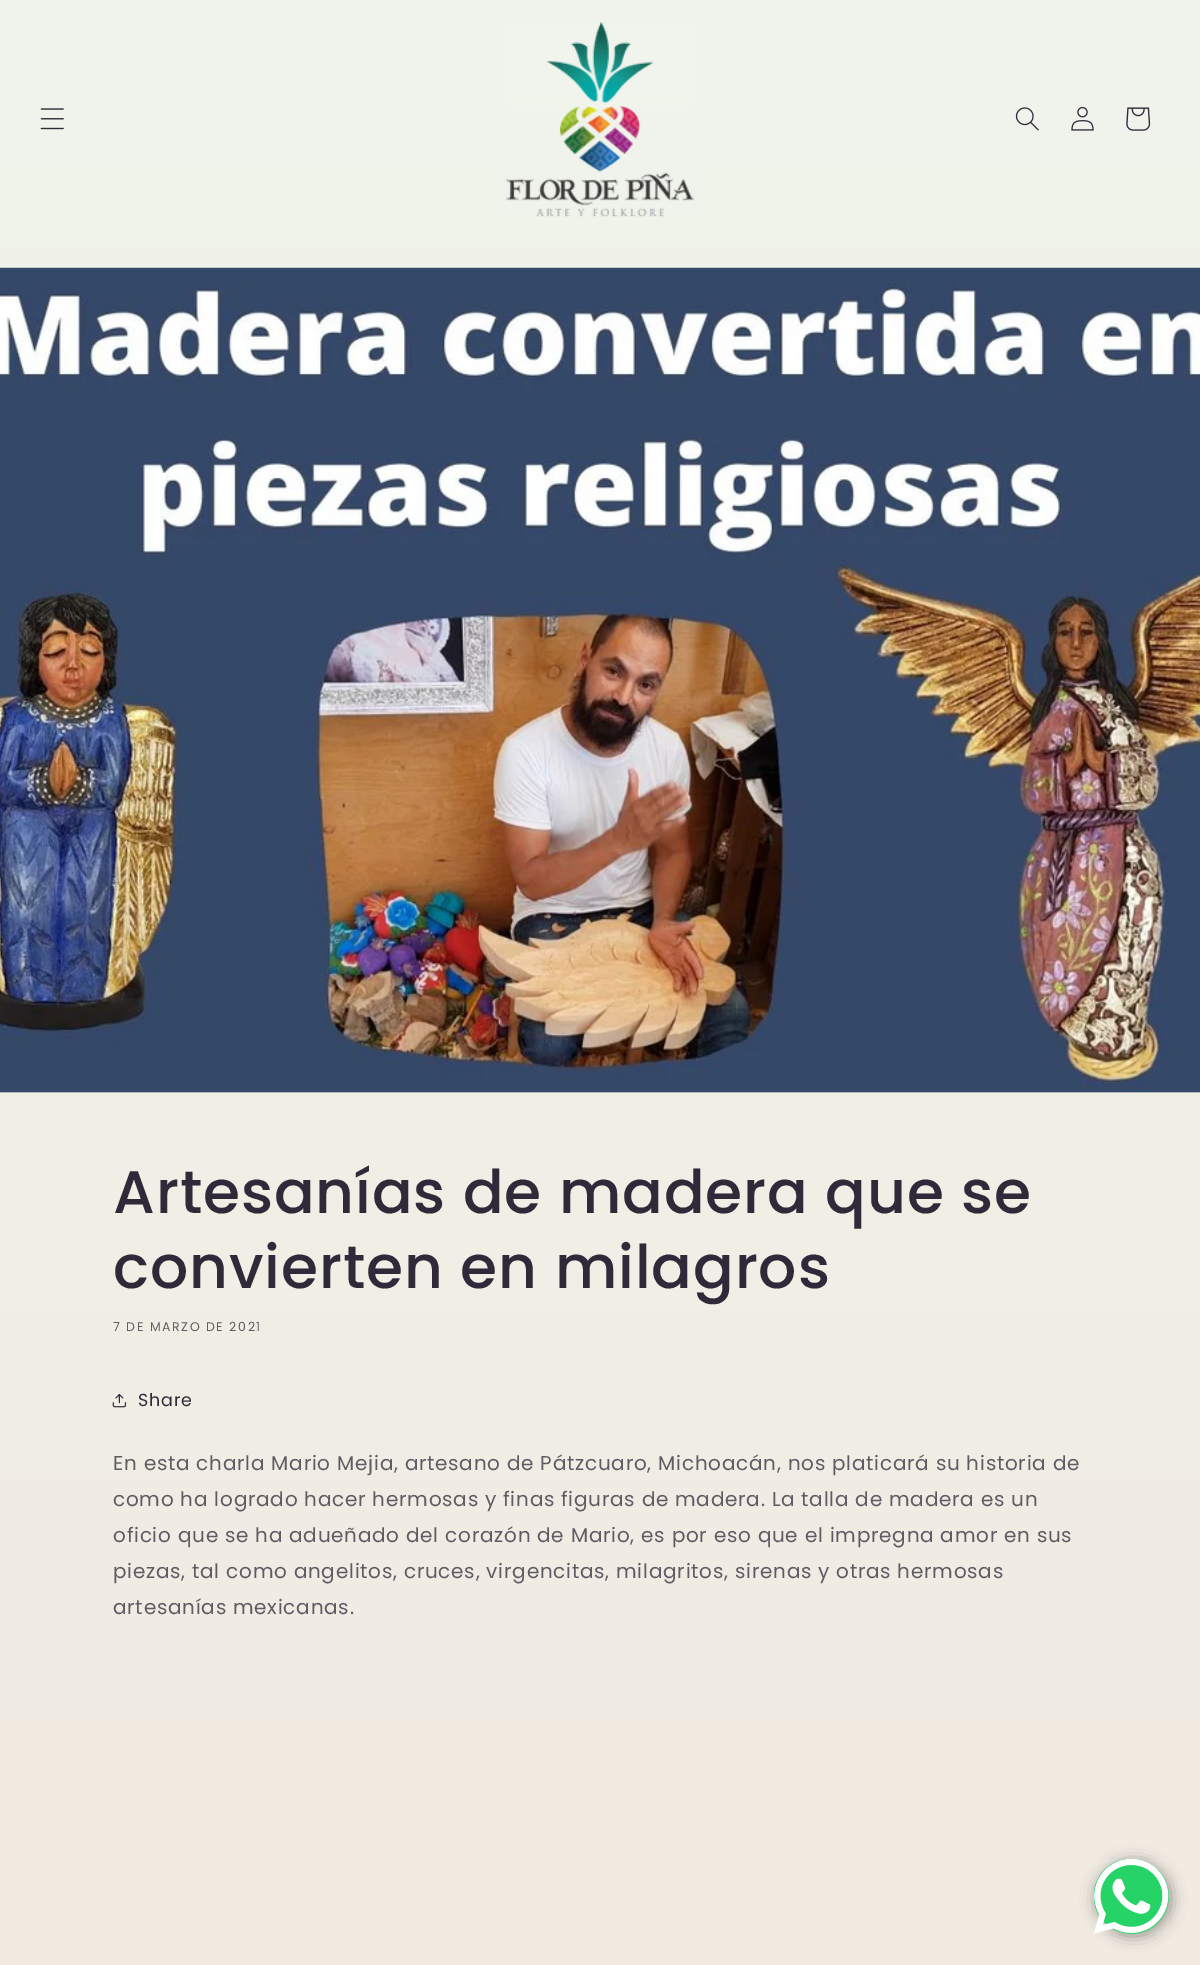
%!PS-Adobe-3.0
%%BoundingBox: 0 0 1200 1965
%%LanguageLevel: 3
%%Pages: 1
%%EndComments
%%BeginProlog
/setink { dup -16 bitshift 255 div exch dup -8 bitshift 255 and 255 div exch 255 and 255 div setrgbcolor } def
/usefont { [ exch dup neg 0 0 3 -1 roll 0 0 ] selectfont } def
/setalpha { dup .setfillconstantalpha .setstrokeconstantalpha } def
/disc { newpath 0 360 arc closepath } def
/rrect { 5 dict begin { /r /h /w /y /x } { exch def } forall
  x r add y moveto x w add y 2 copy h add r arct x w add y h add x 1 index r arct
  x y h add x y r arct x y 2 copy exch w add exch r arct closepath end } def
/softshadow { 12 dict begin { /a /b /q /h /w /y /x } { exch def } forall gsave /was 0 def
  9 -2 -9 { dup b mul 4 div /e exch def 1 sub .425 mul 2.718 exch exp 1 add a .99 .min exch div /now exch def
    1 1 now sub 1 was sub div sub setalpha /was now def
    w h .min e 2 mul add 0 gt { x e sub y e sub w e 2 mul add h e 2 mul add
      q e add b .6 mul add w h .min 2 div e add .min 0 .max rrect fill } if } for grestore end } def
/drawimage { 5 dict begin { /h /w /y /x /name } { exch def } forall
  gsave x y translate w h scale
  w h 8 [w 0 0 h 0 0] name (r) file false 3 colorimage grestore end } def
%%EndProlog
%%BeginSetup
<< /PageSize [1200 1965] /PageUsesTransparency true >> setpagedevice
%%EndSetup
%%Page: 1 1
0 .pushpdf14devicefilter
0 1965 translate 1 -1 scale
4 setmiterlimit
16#FFFFFF setink
0 0 1200 1965 rectfill
gsave 0 0 moveto 1200 0 lineto 1200 1965 lineto 0 1965 lineto closepath clip newpath
<< /ShadingType 2 /ColorSpace /DeviceRGB /Coords [600 0 600 1965] /Extend [true true] /Function << /FunctionType 2 /Domain [0 1] /C0 [0.941 0.957 0.925] /C1 [0.945 0.922 0.886] /N 1 >> >> shfill grestore
gsave 0 1092 moveto 1200 1092 lineto 1200 1093 lineto 0 1093 lineto closepath clip newpath
<< /ShadingType 2 /ColorSpace /DeviceRGB /Coords [600 0 600 1965] /Extend [true true] /Function << /FunctionType 2 /Domain [0 1] /C0 [0.867 0.878 0.855] /C1 [0.871 0.847 0.82] /N 1 >> >> shfill grestore
(img1.raw) 40 108 24 22 drawimage
(img2.raw) 506 22 188 195 drawimage
(img3.raw) 1015 107 24 24 drawimage
(img4.raw) 1071 106 23 25 drawimage
(img5.raw) 1126 107 25 24 drawimage
(img6.raw) 0 267 1200 826 drawimage
/Poppins-Medium 60 usefont
16#2E2A39 setink
113 1213 moveto 0.9 0 (Artesanías de madera que se) ashow
113 1288 moveto 0.9 0 (convierten en milagros) ashow
/Poppins-Regular 12.5 usefont
16#5F5B64 setink
113 1331 moveto 1.6 0 (7 DE MARZO DE 2021) ashow
(img7.raw) 112 1393 15 15 drawimage
/Poppins-Regular 17.5 usefont
16#2E2A39 setink
138 1406 moveto 0.75 0 (Share) ashow
/Poppins-Regular 20 usefont
16#5F5B64 setink
113 1470 moveto 0.75 0 (En esta charla Mario Mejia, artesano de Pátzcuaro, Michoacán, nos platicará su historia de) ashow
113 1506 moveto 0.75 0 (como ha logrado hacer hermosas y finas figuras de madera. La talla de madera es un) ashow
113 1542 moveto 0.75 0 (oficio que se ha adueñado del corazón de Mario, es por eso que el impregna amor en sus) ashow
113 1578 moveto 0.75 0 (piezas, tal como angelitos, cruces, virgencitas, milagritos, sirenas y otras hermosas) ashow
113 1614 moveto 0.75 0 (artesanías mexicanas.) ashow
16#000000 setink
1096 1861 75 75 37.5 7.5 0.4 softshadow
16#25D366 setink
1131.5 1896.5 37.5 disc fill
(img8.raw) 1094 1859 75 75 drawimage
.poppdf14devicefilter showpage
%%EOF
